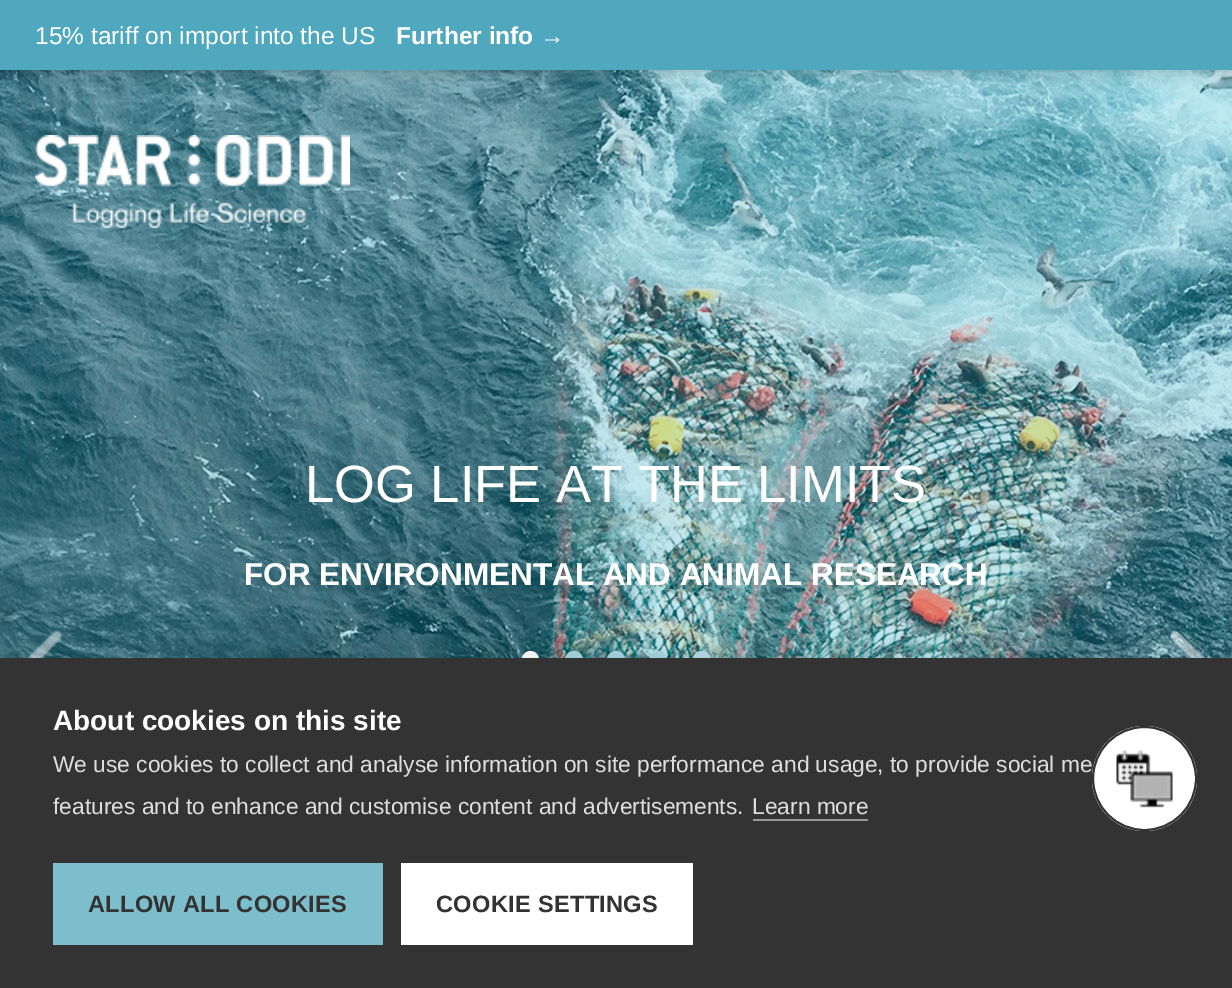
%!PS-Adobe-3.0
%%BoundingBox: 0 0 1232 988
%%LanguageLevel: 3
%%Pages: 1
%%EndComments
%%BeginProlog
/setink { dup -16 bitshift 255 div exch dup -8 bitshift 255 and 255 div exch 255 and 255 div setrgbcolor } def
/usefont { [ exch dup neg 0 0 3 -1 roll 0 0 ] selectfont } def
/setalpha { dup .setfillconstantalpha .setstrokeconstantalpha } def
/disc { newpath 0 360 arc closepath } def
/rrect { 5 dict begin { /r /h /w /y /x } { exch def } forall
  x r add y moveto x w add y 2 copy h add r arct x w add y h add x 1 index r arct
  x y h add x y r arct x y 2 copy exch w add exch r arct closepath end } def
/softshadow { 12 dict begin { /a /b /q /h /w /y /x } { exch def } forall gsave /was 0 def
  9 -2 -9 { dup b mul 4 div /e exch def 1 sub .425 mul 2.718 exch exp 1 add a .99 .min exch div /now exch def
    1 1 now sub 1 was sub div sub setalpha /was now def
    w h .min e 2 mul add 0 gt { x e sub y e sub w e 2 mul add h e 2 mul add
      q e add b .6 mul add w h .min 2 div e add .min 0 .max rrect fill } if } for grestore end } def
/drawimage { 5 dict begin { /h /w /y /x /name } { exch def } forall
  gsave x y translate w h scale
  w h 8 [w 0 0 h 0 0] name (r) file false 3 colorimage grestore end } def
%%EndProlog
%%BeginSetup
<< /PageSize [1232 988] /PageUsesTransparency true >> setpagedevice
%%EndSetup
%%Page: 1 1
0 .pushpdf14devicefilter
0 988 translate 1 -1 scale
4 setmiterlimit
16#FFFFFF setink
0 0 1232 988 rectfill
(img2.raw) 0 70 1232 588 drawimage
16#000000 setink
0 0 1232 70 0 9 0.25 softshadow
16#50A8BE setink
0 0 1232 70 rectfill
/LiberationSans-Regular 24.5 usefont
16#FFFFFF setink
35 44 moveto (15% tariff on import into the US) show
/LiberationSans-Bold 24.5 usefont
396 44 moveto (Further info →) show
(img1.raw) 35 135 315 94 drawimage
/LiberationSans-Regular 52.5 usefont
305 502 moveto (LOG LIFE AT THE LIMITS) show
/LiberationSans-Bold 31.5 usefont
244 585 moveto (FOR ENVIRONMENTAL AND ANIMAL RESEARCH) show
(img3.raw) 27 630 35 28 drawimage
(img4.raw) 1170 630 35 28 drawimage
522 651 17 18 8.5 rrect fill
16#A8D6E3 setink
574 660 9 disc fill
616 660 9 disc fill
658 660 9 disc fill
16#B8DAE8 setink
702 660 9 disc fill
16#000000 setink
0 658 1232 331 0 17.5 0.1 softshadow
16#333333 setink
0 658 1232 330 rectfill
/LiberationSans-Bold 28 usefont
16#FFFFFF setink
53 730 moveto (About cookies on this site) show
/LiberationSans-Regular 22.75 usefont
16#DDDDDD setink
[
    [(We use cookies to collect and analyse information on site performance and usage, to provide social me) 53 772]
    [(features and to enhance and customise content and advertisements.) 53 814]
    [(Learn more) 752 814]
] { aload pop moveto show } forall
16#999999 setink
753 819 115 2 rectfill
16#7DBECC setink
53 863 330 82 rectfill
/LiberationSans-Bold 23.6 usefont
16#333333 setink
88 912 moveto 0.3 0 (ALLOW ALL COOKIES) ashow
16#FFFFFF setink
401 863 292 82 rectfill
16#333333 setink
436 912 moveto 0.3 0 (COOKIE SETTINGS) ashow
16#FFFFFF setink
1144.5 778.5 52.5 disc fill
(img5.raw) 1116 750 57 58 drawimage
16#333333 setink
2 setlinewidth
1144.5 778.5 51.5 disc stroke
.poppdf14devicefilter showpage
%%EOF
